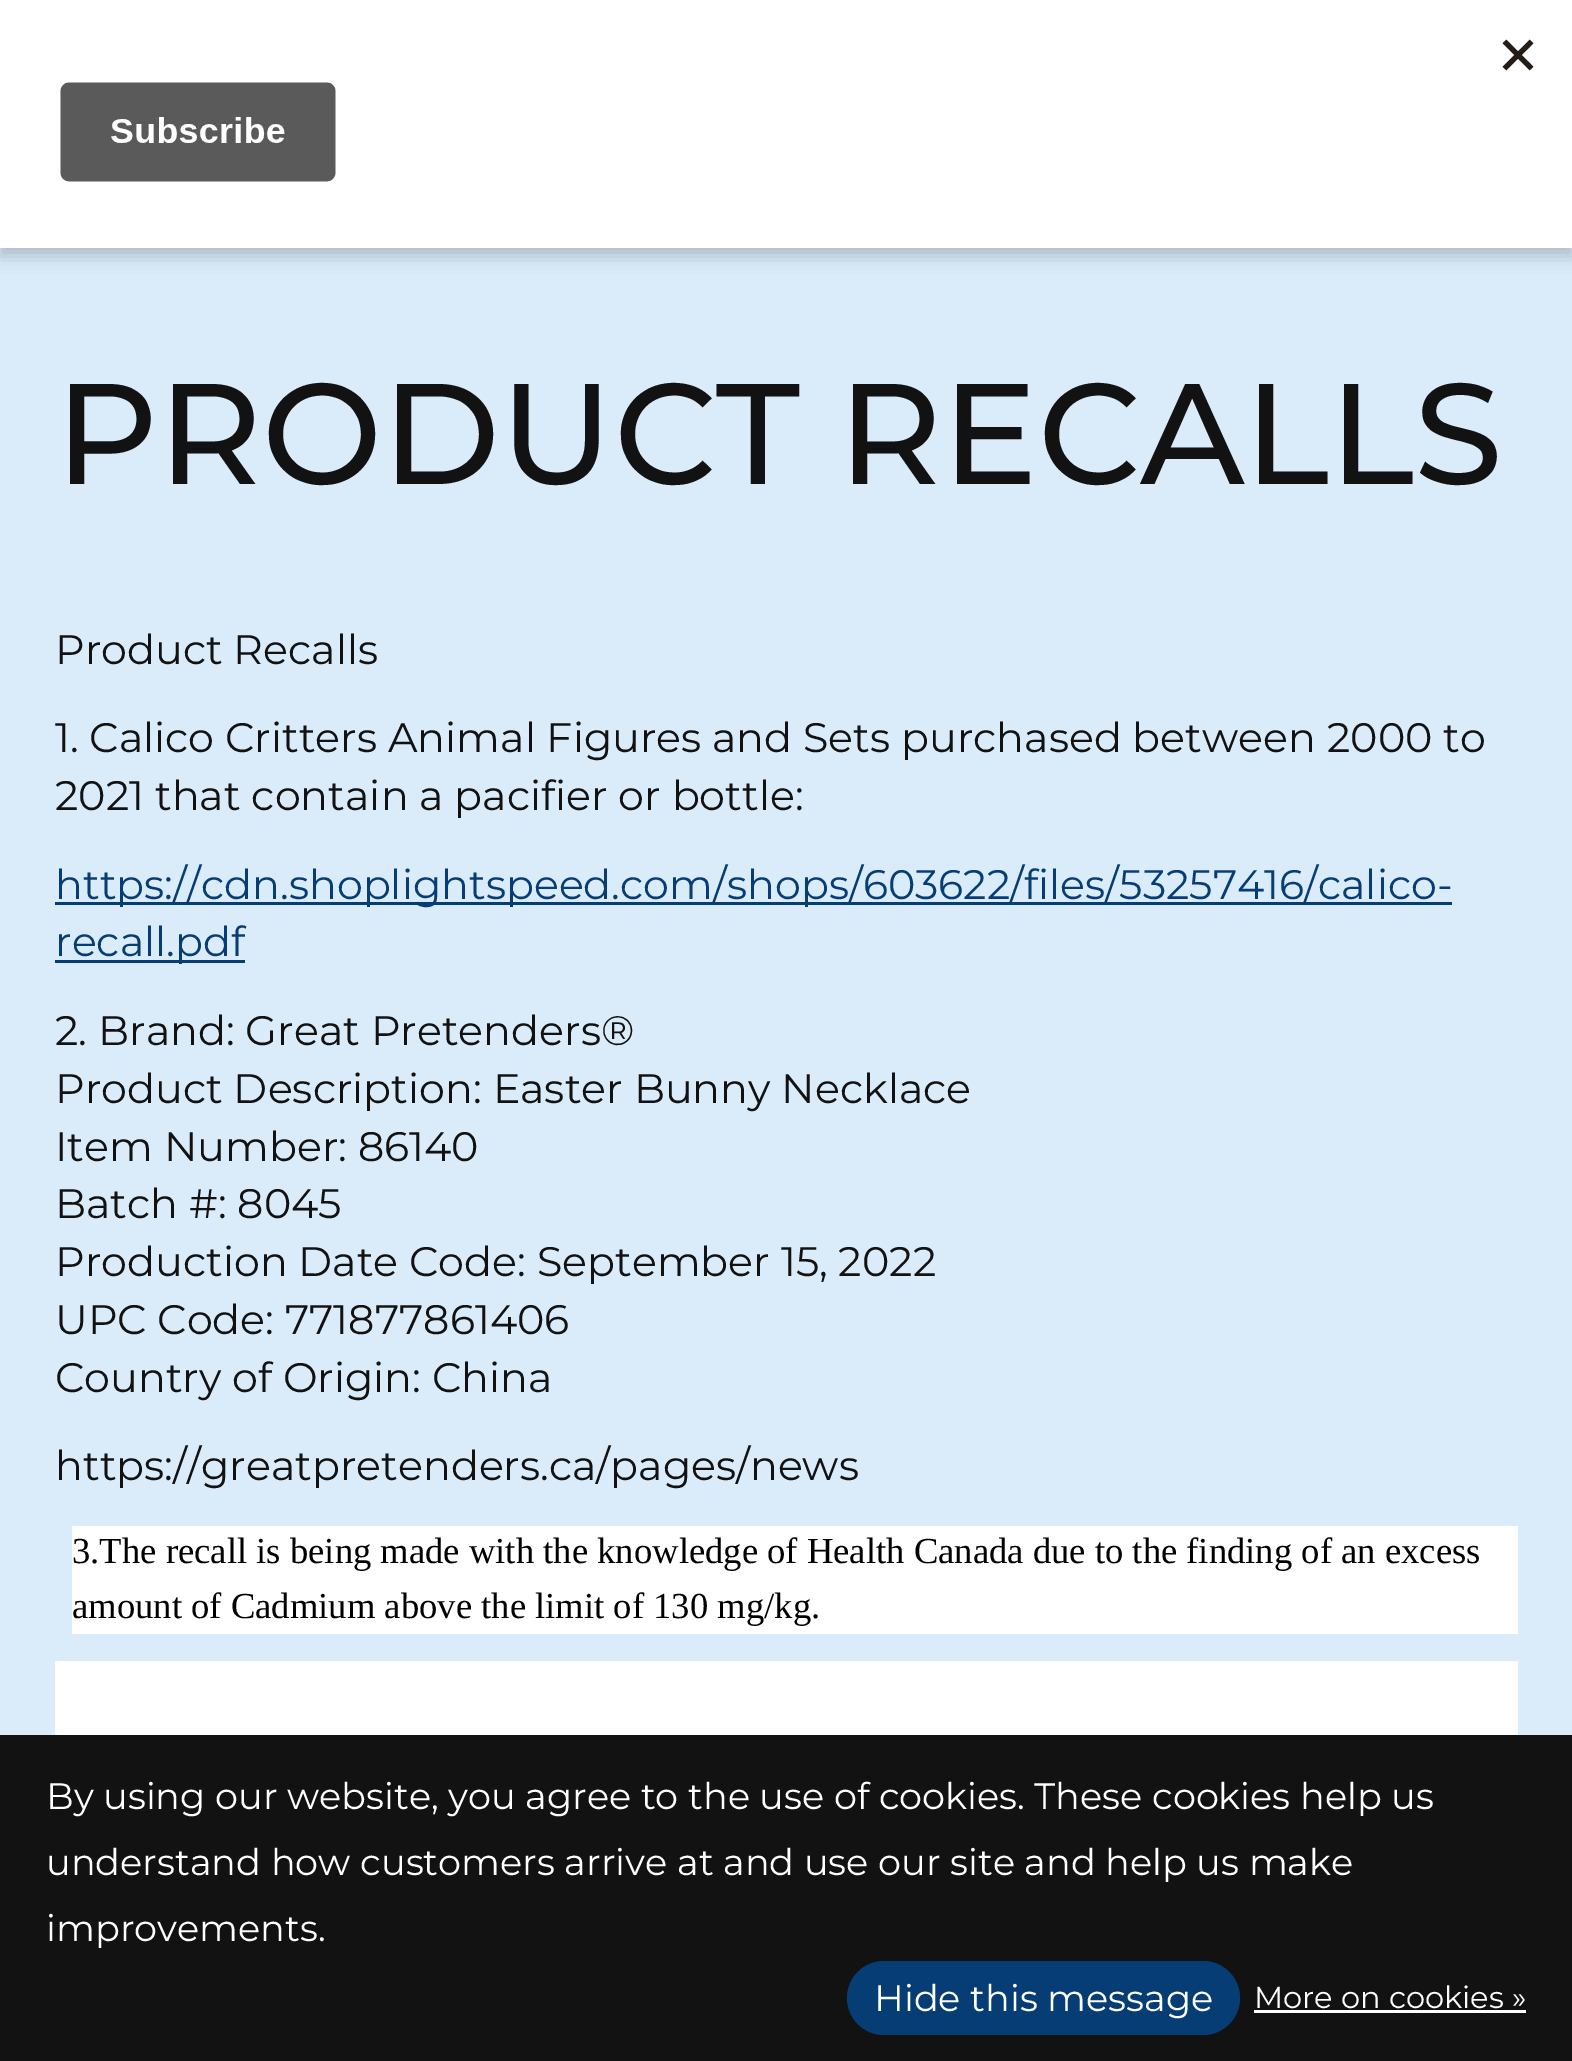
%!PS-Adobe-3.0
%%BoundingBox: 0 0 1572 2061
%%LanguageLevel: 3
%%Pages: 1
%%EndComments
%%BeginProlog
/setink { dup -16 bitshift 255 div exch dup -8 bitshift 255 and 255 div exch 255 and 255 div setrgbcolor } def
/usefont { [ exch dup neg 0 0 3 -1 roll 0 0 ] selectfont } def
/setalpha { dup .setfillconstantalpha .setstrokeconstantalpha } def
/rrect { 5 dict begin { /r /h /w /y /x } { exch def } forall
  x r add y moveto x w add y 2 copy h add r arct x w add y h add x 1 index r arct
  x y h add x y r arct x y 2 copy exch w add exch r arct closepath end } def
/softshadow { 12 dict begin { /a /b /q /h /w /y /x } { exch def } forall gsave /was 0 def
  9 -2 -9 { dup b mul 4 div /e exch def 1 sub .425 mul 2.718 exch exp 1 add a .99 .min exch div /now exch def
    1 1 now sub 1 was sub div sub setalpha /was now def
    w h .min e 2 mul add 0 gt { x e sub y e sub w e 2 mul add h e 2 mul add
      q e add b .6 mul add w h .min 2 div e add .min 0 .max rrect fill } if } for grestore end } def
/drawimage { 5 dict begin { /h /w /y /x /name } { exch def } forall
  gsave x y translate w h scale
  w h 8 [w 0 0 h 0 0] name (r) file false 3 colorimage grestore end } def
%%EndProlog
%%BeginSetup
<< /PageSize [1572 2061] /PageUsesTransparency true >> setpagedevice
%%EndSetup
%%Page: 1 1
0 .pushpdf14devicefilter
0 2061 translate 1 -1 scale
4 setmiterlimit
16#DAECFA setink
0 0 1572 2061 rectfill
16#000000 setink
0 8 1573 248 0 8 0.2 softshadow
16#FFFFFF setink
0 0 1572 248 rectfill
(img1.raw) 60 39 1474 143 drawimage
/Montserrat-Medium 143 usefont
16#121212 setink
55 484 moveto (PRODUCT RECALLS) show
/Montserrat-Regular 41.25 usefont
[
    [(Product Recalls) 55 664]
    [(1. Calico Critters Animal Figures and Sets purchased between 2000 to) 55 752]
    [(2021 that contain a pacifier or bottle:) 55 810]
] { aload pop moveto show } forall
16#063D75 setink
55 902 1397 3 rectfill
55 899 moveto (https://cdn.shoplightspeed.com/shops/603622/files/53257416/calico-) show
55 960 190 3 rectfill
55 956 moveto (recall.pdf) show
16#121212 setink
[
    [(2. Brand: Great Pretenders®) 55 1045]
    [(Product Description: Easter Bunny Necklace) 55 1103]
    [(Item Number: 86140) 55 1161]
    [(Batch #: 8045) 55 1218]
    [(Production Date Code: September 15, 2022) 55 1276]
    [(UPC Code: 771877861406) 55 1334]
    [(Country of Origin: China) 55 1392]
    [(https://greatpretenders.ca/pages/news) 55 1480]
] { aload pop moveto show } forall
16#FFFFFF setink
72 1526 1446 108 rectfill
/LiberationSerif-Regular 36.65 usefont
16#000000 setink
72 1563 moveto (3.The recall is being made with the knowledge of Health Canada due to the finding of an excess) show
72 1618 moveto (amount of Cadmium above the limit of 130 mg/kg.) show
16#FFFFFF setink
55 1661 1463 74 rectfill
16#121212 setink
0 1735 1572 326 rectfill
/Montserrat-Regular 36.65 usefont
16#FFFFFF setink
[
    [(By using our website, you agree to the use of cookies. These cookies help us) 46 1809]
    [(understand how customers arrive at and use our site and help us make) 46 1875]
    [(improvements.) 46 1941]
] { aload pop moveto show } forall
16#063D75 setink
847 1961 393 74 37 rrect fill
16#FFFFFF setink
874 2011 moveto (Hide this message) show
/Montserrat-Regular 30.5 usefont
1254 2008 moveto (More on cookies ») show
1254 2010 272 3 rectfill
.poppdf14devicefilter showpage
%%EOF
